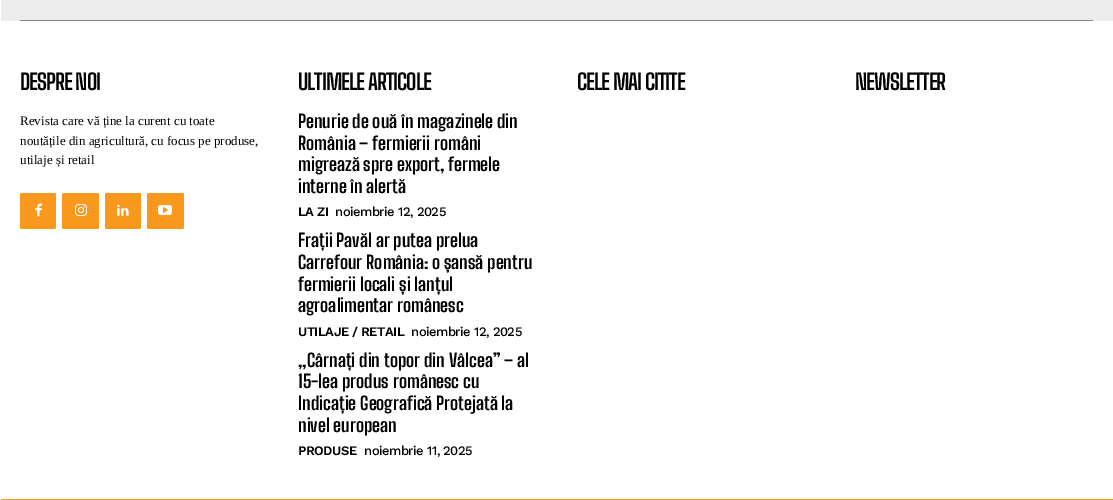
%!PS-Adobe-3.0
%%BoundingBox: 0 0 1113 500
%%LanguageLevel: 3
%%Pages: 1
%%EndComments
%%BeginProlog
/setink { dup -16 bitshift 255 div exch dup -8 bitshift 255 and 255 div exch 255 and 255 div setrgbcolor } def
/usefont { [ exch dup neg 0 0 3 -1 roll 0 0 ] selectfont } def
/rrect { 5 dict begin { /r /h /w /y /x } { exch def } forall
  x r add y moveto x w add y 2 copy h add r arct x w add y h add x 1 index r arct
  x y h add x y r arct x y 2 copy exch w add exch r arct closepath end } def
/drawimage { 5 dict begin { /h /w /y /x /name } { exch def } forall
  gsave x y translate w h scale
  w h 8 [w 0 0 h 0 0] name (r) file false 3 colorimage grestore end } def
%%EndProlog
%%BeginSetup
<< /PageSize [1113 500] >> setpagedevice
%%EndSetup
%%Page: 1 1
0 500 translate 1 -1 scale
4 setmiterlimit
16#FFFFFF setink
0 0 1113 500 rectfill
16#EDEDED setink
1 0 1112 21 rectfill
16#888888 setink
20 20 1073 1 rectfill
/BigShouldersText-Bold 22 usefont
16#000000 setink
20 90 moveto -1 0 (DESPRE NOI) ashow
/LiberationSerif-Regular 13 usefont
[
    [(Revista care vă ține la curent cu toate) 20 125]
    [(noutățile din agricultură, cu focus pe produse,) 20 145]
    [(utilaje și retail) 20 164]
] { aload pop moveto show } forall
16#F8981D setink
20 193 36 36 2 rrect fill
(img1.raw) 35 203 7 14 drawimage
62 193 37 36 2 rrect fill
(img2.raw) 75 204 12 12 drawimage
105 193 36 36 2 rrect fill
(img3.raw) 117 204 12 12 drawimage
147 193 37 36 2 rrect fill
(img4.raw) 158 205 14 10 drawimage
/BigShouldersText-Bold 22 usefont
16#000000 setink
298 90 moveto -1 0 (ULTIMELE ARTICOLE) ashow
/BigShouldersText-Bold 18 usefont
[
    [(Penurie de ouă în magazinele din) 298 128]
    [(România – fermierii români) 298 150]
    [(migrează spre export, fermele) 298 171]
    [(interne în alertă) 298 193]
] { aload pop moveto show } forall
/WorkSans-SemiBold 13 usefont
298 216 moveto -0.5 0 (LA ZI) ashow
/WorkSans-Medium 13 usefont
335 216 moveto -0.5 0 (noiembrie 12, 2025) ashow
/BigShouldersText-Bold 18 usefont
[
    [(Frații Pavăl ar putea prelua) 298 247]
    [(Carrefour România: o șansă pentru) 298 269]
    [(fermierii locali și lanțul) 298 291]
    [(agroalimentar românesc) 298 312]
] { aload pop moveto show } forall
/WorkSans-SemiBold 13 usefont
298 336 moveto -0.5 0 (UTILAJE / RETAIL) ashow
/WorkSans-Medium 13 usefont
411 336 moveto -0.5 0 (noiembrie 12, 2025) ashow
/BigShouldersText-Bold 18 usefont
[
    [(„Cârnați din topor din Vâlcea” – al) 298 367]
    [(15-lea produs românesc cu) 298 388]
    [(Indicație Geografică Protejată la) 298 410]
    [(nivel european) 298 432]
] { aload pop moveto show } forall
/WorkSans-SemiBold 13 usefont
298 455 moveto -0.5 0 (PRODUSE) ashow
/WorkSans-Medium 13 usefont
364 455 moveto -0.5 0 (noiembrie 11, 2025) ashow
/BigShouldersText-Bold 22 usefont
577 90 moveto -1 0 (CELE MAI CITITE) ashow
855 90 moveto -1 0 (NEWSLETTER) ashow
16#F8981D setink
1 499 1112 1 rectfill
showpage
%%EOF
